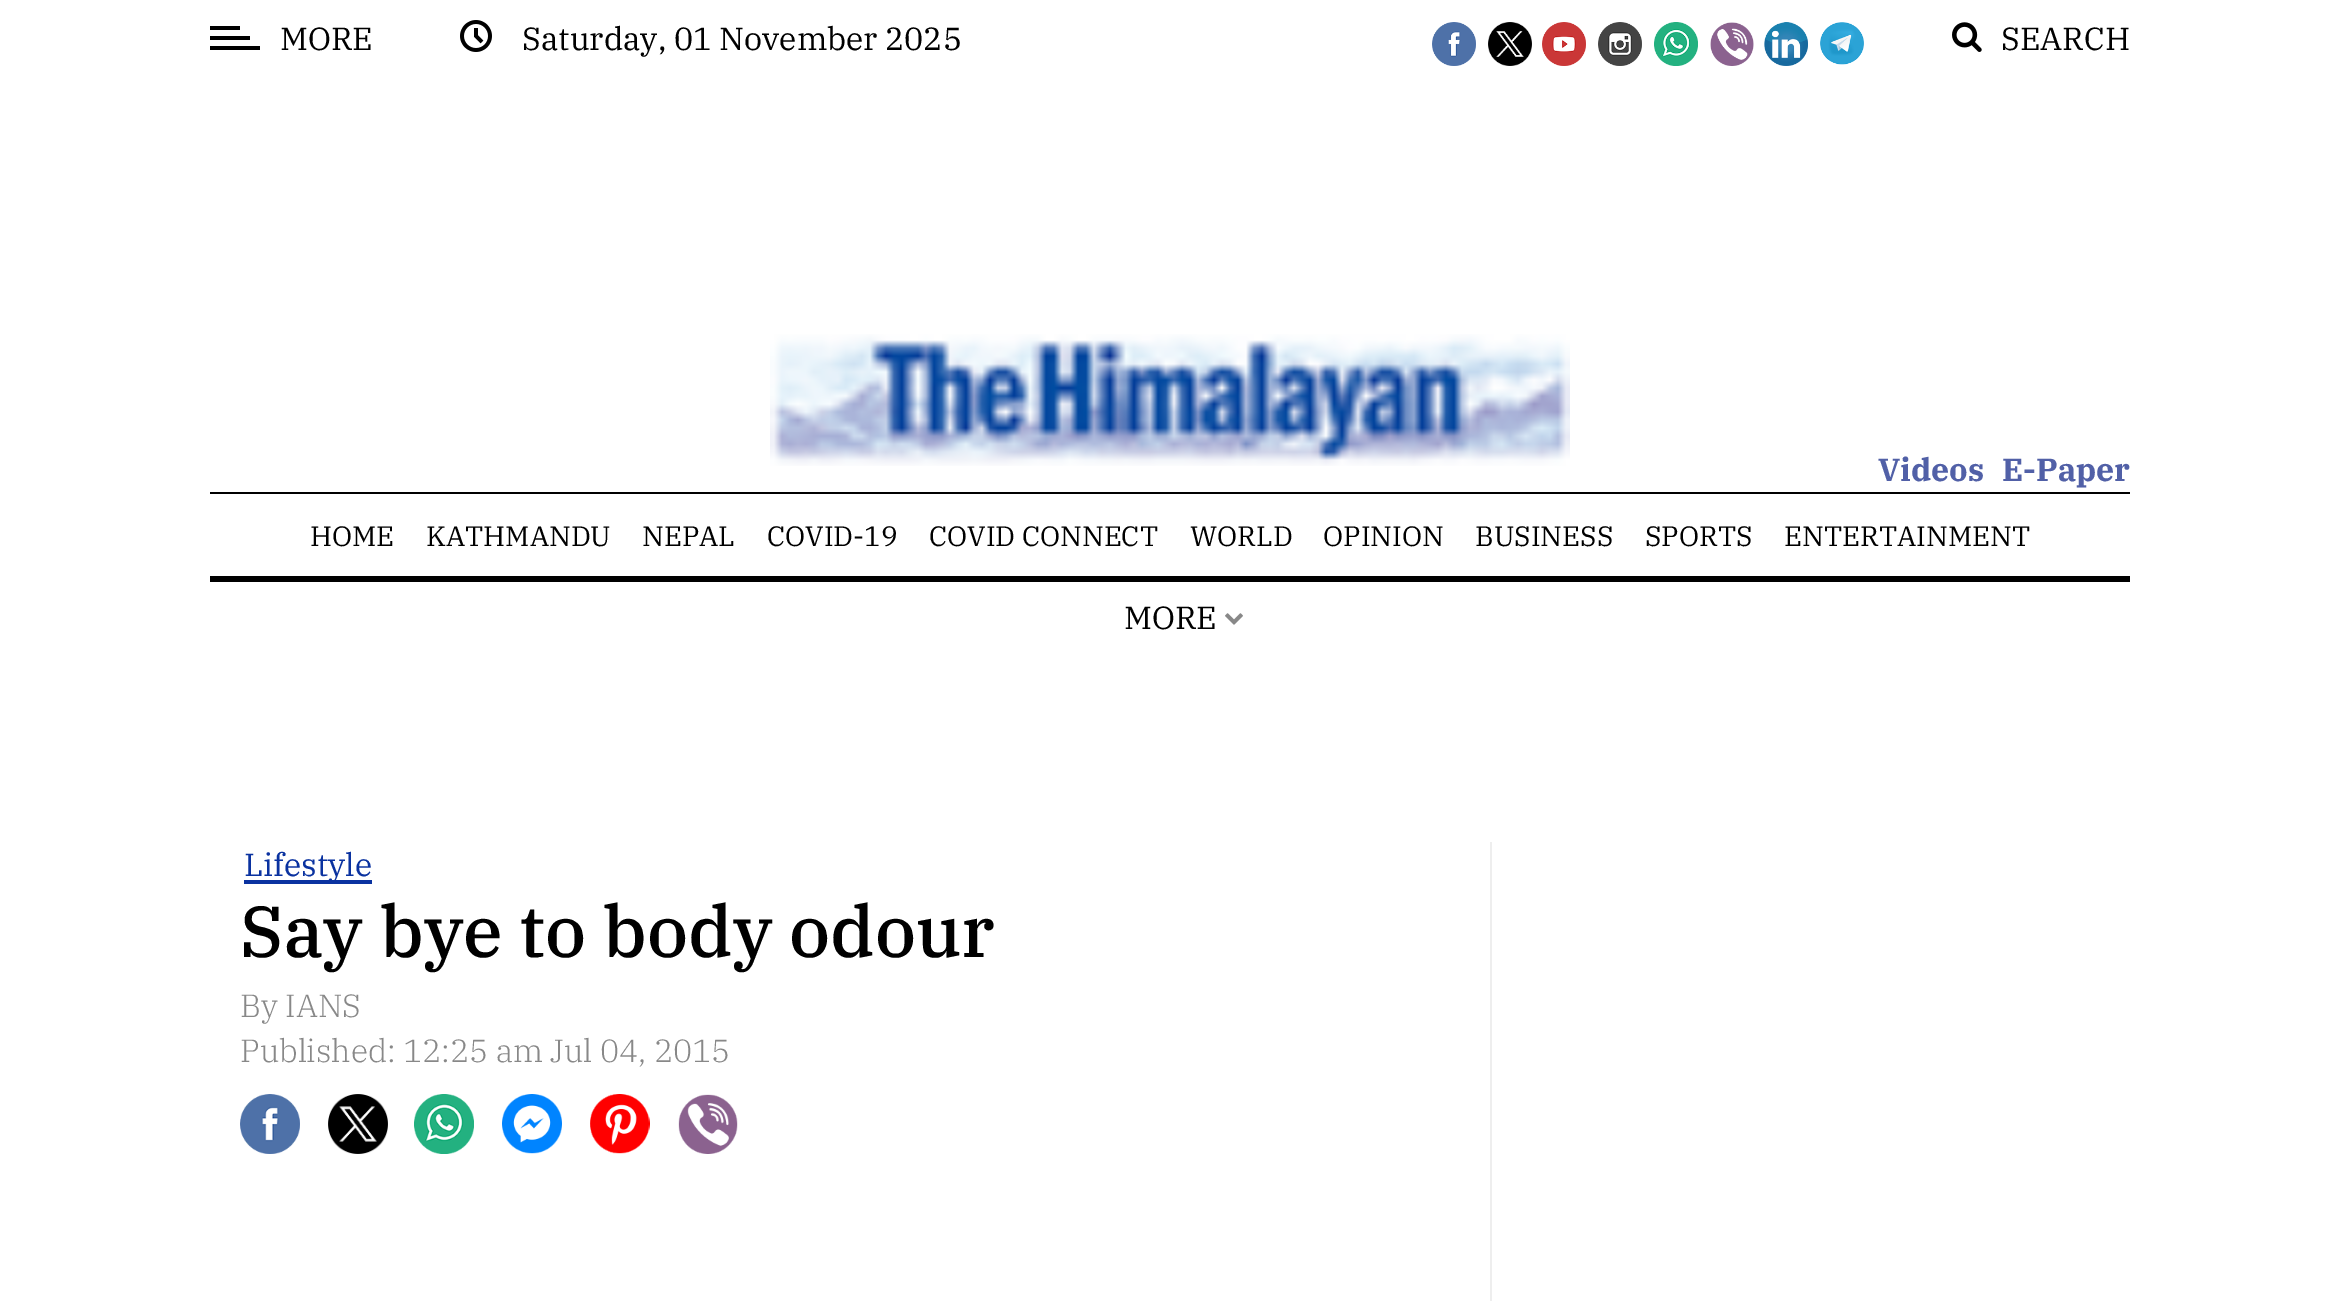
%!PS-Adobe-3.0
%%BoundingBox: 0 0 2340 1301
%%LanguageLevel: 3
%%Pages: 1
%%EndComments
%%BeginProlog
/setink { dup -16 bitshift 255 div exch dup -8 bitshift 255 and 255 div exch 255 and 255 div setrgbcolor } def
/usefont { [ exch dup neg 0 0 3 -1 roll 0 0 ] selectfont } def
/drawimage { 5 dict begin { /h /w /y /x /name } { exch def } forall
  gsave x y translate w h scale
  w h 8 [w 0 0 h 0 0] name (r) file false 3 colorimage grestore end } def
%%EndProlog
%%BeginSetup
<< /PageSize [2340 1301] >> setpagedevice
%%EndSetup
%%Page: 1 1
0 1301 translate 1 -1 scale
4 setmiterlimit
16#FFFFFF setink
0 0 2340 1301 rectfill
[
    [210 46 50 4 16#000000]
    [210 26 30 4 16#000000]
    [210 36 40 4 16#000000]
] { aload pop setink rectfill } forall
/IBMPlexSerif-Regular 32 usefont
280 50 moveto (MORE) show
(img1.raw) 460 20 32 32 drawimage
522 50 moveto (Saturday, 01 November 2025) show
(img2.raw) 1432 22 44 44 drawimage
(img3.raw) 1488 22 44 44 drawimage
(img4.raw) 1542 22 44 44 drawimage
(img5.raw) 1598 22 44 44 drawimage
(img6.raw) 1654 22 44 44 drawimage
(img7.raw) 1710 22 44 44 drawimage
(img8.raw) 1764 22 44 44 drawimage
(img9.raw) 1820 22 44 43 drawimage
(img10.raw) 1952 22 30 30 drawimage
2001 50 moveto (SEARCH) show
210 492 1920 2 rectfill
(img11.raw) 770 334 800 132 drawimage
/IBMPlexSerif-Bold 32 usefont
16#5160A7 setink
1878 481 moveto (Videos) show
2002 481 moveto (E-Paper) show
16#000000 setink
210 576 1920 6 rectfill
/IBMPlexSerif-Regular 28 usefont
[
    [(HOME) 310 546]
    [(KATHMANDU) 426 546]
    [(NEPAL) 642 546]
    [(COVID-19) 767 546]
    [(COVID CONNECT) 929 546]
    [(WORLD) 1190 546]
    [(OPINION) 1323 546]
    [(BUSINESS) 1475 546]
    [(SPORTS) 1645 546]
    [(ENTERTAINMENT) 1784 546]
] { aload pop moveto show } forall
/IBMPlexSerif-Regular 32 usefont
1124 629 moveto (MORE) show
(img12.raw) 1225 613 18 12 drawimage
16#0A32A0 setink
244 880 128 4 rectfill
244 876 moveto (Lifestyle) show
/IBMPlexSerif-Medium 72 usefont
16#000000 setink
240 957 moveto (Say bye to body odour) show
/IBMPlexSerif-Light 32 usefont
16#888888 setink
240 1017 moveto (By IANS) show
240 1062 moveto (Published: 12:25 am Jul 04, 2015) show
(img13.raw) 240 1094 60 60 drawimage
(img14.raw) 328 1094 60 60 drawimage
(img15.raw) 414 1094 60 60 drawimage
(img16.raw) 502 1094 60 60 drawimage
(img17.raw) 590 1094 60 60 drawimage
(img18.raw) 678 1094 60 60 drawimage
16#EEEEEE setink
1490 842 2 459 rectfill
showpage
%%EOF
